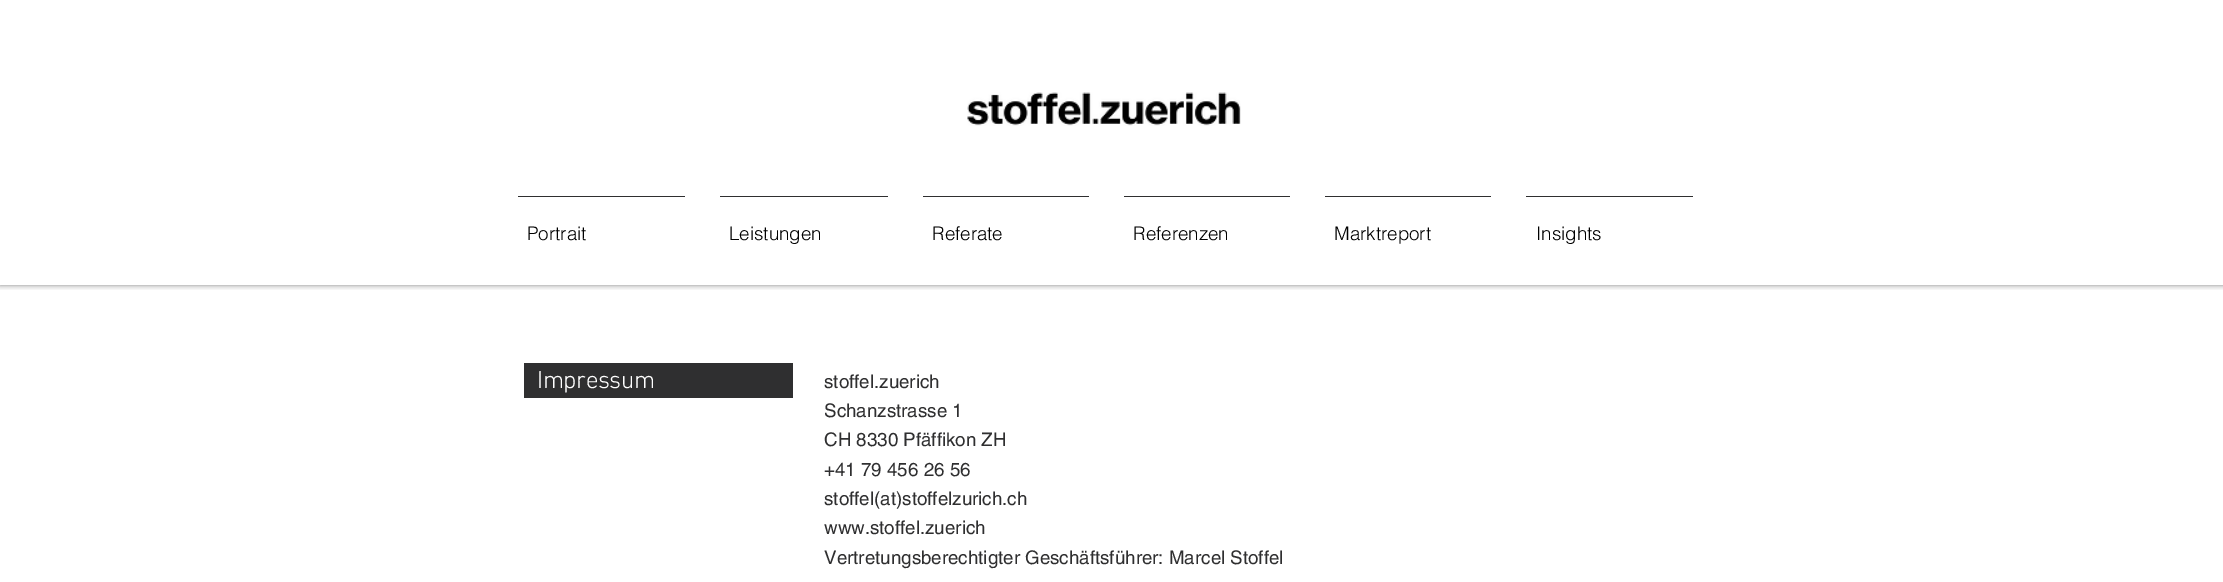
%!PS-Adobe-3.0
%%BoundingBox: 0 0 2223 582
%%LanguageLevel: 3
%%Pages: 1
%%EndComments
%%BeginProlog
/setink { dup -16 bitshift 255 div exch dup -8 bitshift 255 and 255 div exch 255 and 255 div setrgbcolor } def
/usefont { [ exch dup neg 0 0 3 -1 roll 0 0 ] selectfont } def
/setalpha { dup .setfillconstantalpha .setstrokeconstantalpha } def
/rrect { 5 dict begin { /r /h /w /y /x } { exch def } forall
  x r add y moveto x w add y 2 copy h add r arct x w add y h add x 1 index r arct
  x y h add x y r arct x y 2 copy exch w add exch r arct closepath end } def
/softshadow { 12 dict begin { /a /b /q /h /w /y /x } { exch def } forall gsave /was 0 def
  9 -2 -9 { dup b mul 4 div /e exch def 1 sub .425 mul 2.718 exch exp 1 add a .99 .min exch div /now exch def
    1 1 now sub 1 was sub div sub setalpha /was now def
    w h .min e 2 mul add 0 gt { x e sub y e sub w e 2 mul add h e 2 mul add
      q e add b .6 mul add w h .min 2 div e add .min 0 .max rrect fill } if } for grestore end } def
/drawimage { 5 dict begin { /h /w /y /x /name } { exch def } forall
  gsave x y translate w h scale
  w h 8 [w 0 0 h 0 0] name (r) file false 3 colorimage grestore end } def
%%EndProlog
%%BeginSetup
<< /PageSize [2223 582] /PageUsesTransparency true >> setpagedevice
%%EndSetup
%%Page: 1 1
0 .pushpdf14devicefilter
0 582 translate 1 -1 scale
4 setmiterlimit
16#FFFFFF setink
0 0 2223 582 rectfill
gsave
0 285 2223 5 rectclip
16#000000 setink
0 0 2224 285 0 3 0.5 softshadow
grestore
(img1.raw) 967 92 274 34 drawimage
16#2F2F30 setink
518 196 167 1 rectfill
/helvetica-Light 18.75 usefont
16#000000 setink
527 240 moveto (Portrait) show
16#2F2F30 setink
720 196 168 1 rectfill
16#000000 setink
729 240 moveto (Leistungen) show
16#2F2F30 setink
923 196 166 1 rectfill
16#000000 setink
932 240 moveto (Referate) show
16#2F2F30 setink
1124 196 166 1 rectfill
16#000000 setink
1133 240 moveto (Referenzen) show
16#2F2F30 setink
1325 196 166 1 rectfill
16#000000 setink
1334 240 moveto (Marktreport) show
16#2F2F30 setink
1526 196 167 1 rectfill
16#000000 setink
1536 240 moveto (Insights) show
16#2F2F30 setink
524 363 269 35 rectfill
/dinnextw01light-Light 25 usefont
16#FFFFFF setink
537 388 moveto -0.5 0 (Impressum) ashow
/helvetica-Regular 18.75 usefont
16#2F2F30 setink
[
    [(stoffel.zuerich) 824 388]
    [(Schanzstrasse 1) 824 417]
    [(CH 8330 Pfäffikon ZH) 824 446]
    [(+41 79 456 26 56) 824 476]
    [(stoffel\(at\)stoffelzurich.ch) 824 505]
    [(www.stoffel.zuerich) 824 534]
    [(Vertretungsberechtigter Geschäftsführer: Marcel Stoffel) 824 564]
] { aload pop moveto show } forall
.poppdf14devicefilter showpage
%%EOF
